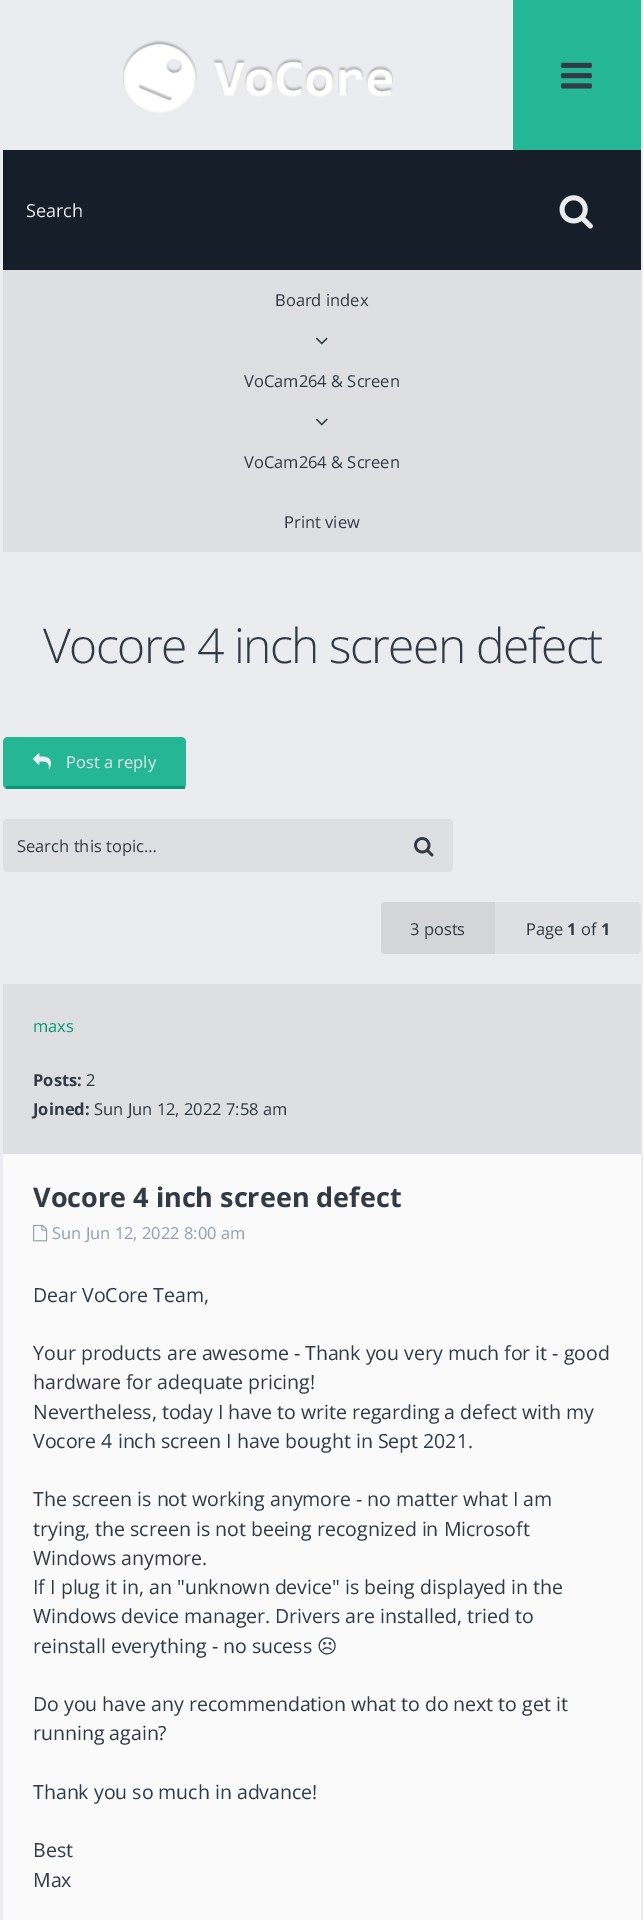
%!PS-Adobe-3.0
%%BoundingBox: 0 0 643 1920
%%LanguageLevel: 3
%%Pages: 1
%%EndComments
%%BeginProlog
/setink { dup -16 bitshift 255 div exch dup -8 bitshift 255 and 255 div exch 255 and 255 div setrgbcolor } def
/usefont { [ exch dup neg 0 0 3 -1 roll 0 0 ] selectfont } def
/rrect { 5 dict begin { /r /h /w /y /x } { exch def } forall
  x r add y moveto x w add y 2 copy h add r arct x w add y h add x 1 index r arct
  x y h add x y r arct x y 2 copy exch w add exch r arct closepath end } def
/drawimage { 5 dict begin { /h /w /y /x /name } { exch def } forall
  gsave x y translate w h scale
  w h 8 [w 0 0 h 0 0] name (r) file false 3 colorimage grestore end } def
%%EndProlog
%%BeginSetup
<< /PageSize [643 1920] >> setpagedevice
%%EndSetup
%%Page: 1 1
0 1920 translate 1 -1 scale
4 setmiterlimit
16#EAECF0 setink
0 0 643 1920 rectfill
(img1.raw) 123 40 270 73 drawimage
16#25B695 setink
513 0 128 150 rectfill
(img2.raw) 561 62 31 27 drawimage
16#161E29 setink
3 150 638 120 rectfill
/OpenSans-Regular 18 usefont
16#EAECF0 setink
26 217 moveto (Search) show
(img3.raw) 559 195 34 34 drawimage
16#DDDFE3 setink
3 270 638 282 rectfill
/OpenSans-Regular 16.5 usefont
16#323A45 setink
275 306 moveto (Board index) show
(img4.raw) 315 337 13 8 drawimage
244 387 moveto (VoCam264 & Screen) show
(img4.raw) 315 418 13 8 drawimage
244 468 moveto (VoCam264 & Screen) show
284 528 moveto (Print view) show
/OpenSans-Light 48 usefont
43 663 moveto -1.5 0 (Vocore 4 inch screen defect) ashow
16#25B695 setink
3 737 183 52 5 rrect fill
16#079877 setink
6 786 179 3 rectfill
(img5.raw) 33 753 18 17 drawimage
/OpenSans-Regular 16.5 usefont
16#EAECF0 setink
66 768 moveto (Post a reply) show
16#DDDFE3 setink
3 819 450 53 5 rrect fill
16#323A45 setink
17 852 moveto (Search this topic…) show
(img6.raw) 414 837 20 20 drawimage
16#DDDFE3 setink
381 902 260 52 5 rrect fill
16#D3D5D9 setink
386 902 moveto 495 902 lineto 495 954 lineto 386 954 lineto 383 954 381 952 381 949 curveto 381 907 lineto 381 904 383 902 386 902 curveto closepath fill
16#323A45 setink
410 935 moveto (3 posts) show
526 935 moveto (Page) show
/OpenSans-Bold 16.5 usefont
567 935 moveto (1) show
/OpenSans-Regular 16.5 usefont
581 935 moveto (of) show
/OpenSans-Bold 16.5 usefont
601 935 moveto (1) show
16#DDDFE3 setink
3 984 638 170 rectfill
/OpenSans-Regular 16.5 usefont
16#079877 setink
33 1032 moveto (maxs) show
/OpenSans-Bold 16.5 usefont
16#323A45 setink
33 1086 moveto (Posts:) show
/OpenSans-Regular 16.5 usefont
86 1086 moveto (2) show
/OpenSans-Bold 16.5 usefont
33 1115 moveto (Joined:) show
/OpenSans-Regular 16.5 usefont
94 1115 moveto (Sun Jun 12, 2022 7:58 am) show
16#FAFAFA setink
3 1154 638 766 rectfill
/OpenSans-Bold 27 usefont
16#323A45 setink
33 1207 moveto (Vocore 4 inch screen defect) show
(img7.raw) 33 1224 15 18 drawimage
/OpenSans-Regular 16.5 usefont
16#969EA9 setink
52 1239 moveto (Sun Jun 12, 2022 8:00 am) show
/OpenSans-Regular 19.5 usefont
16#323A45 setink
[
    [(Dear VoCore Team,) 33 1302]
    [(Your products are awesome - Thank you very much for it - good) 33 1360]
    [(hardware for adequate pricing!) 33 1389]
    [(Nevertheless, today I have to write regarding a defect with my) 33 1419]
    [(Vocore 4 inch screen I have bought in Sept 2021.) 33 1448]
    [(The screen is not working anymore - no matter what I am) 33 1506]
    [(trying, the screen is not beeing recognized in Microsoft) 33 1536]
    [(Windows anymore.) 33 1565]
    [(If I plug it in, an "unknown device" is being displayed in the) 33 1594]
    [(Windows device manager. Drivers are installed, tried to) 33 1623]
    [(reinstall everything - no sucess) 33 1653]
] { aload pop moveto show } forall
/DejaVuSans-Regular 19.5 usefont
317 1653 moveto (☹) show
/OpenSans-Regular 19.5 usefont
[
    [(Do you have any recommendation what to do next to get it) 33 1711]
    [(running again?) 33 1740]
    [(Thank you so much in advance!) 33 1799]
    [(Best) 33 1857]
    [(Max) 33 1887]
] { aload pop moveto show } forall
showpage
%%EOF
